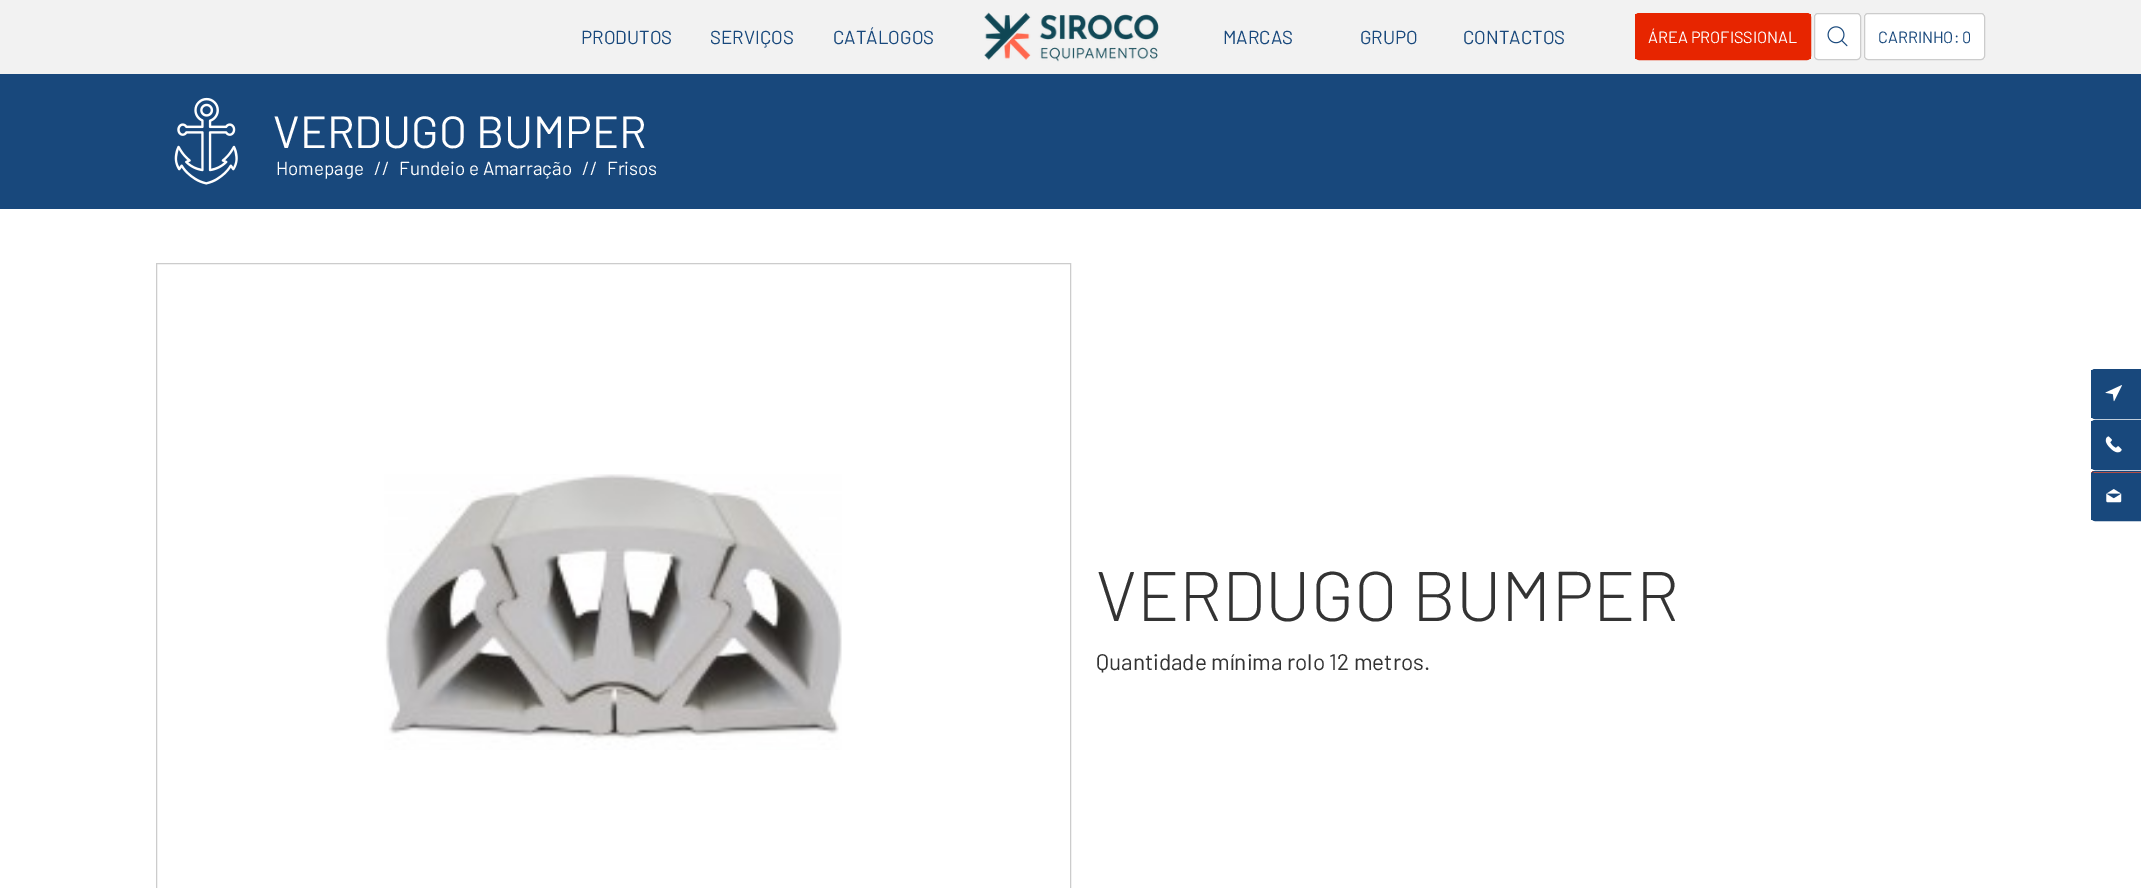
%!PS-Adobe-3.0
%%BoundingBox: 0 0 2141 888
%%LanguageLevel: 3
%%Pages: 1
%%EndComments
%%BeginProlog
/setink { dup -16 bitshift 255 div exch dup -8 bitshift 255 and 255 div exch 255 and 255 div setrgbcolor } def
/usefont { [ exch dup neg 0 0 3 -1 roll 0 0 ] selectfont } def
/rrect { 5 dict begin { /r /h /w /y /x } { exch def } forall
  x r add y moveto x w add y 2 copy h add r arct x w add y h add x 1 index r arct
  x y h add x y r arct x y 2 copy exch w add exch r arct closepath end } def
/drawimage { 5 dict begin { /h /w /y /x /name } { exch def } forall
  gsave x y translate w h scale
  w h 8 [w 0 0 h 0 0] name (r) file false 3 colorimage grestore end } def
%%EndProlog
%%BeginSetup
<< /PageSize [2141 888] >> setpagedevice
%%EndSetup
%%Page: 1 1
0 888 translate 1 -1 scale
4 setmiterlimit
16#FFFFFF setink
0 0 2141 888 rectfill
16#F2F2F2 setink
0 0 2141 74 rectfill
(img1.raw) 984 12 175 50 drawimage
/Barlow-Regular 18.75 usefont
16#18487C setink
[
    [(PRODUTOS) 581 44]
    [(SERVIÇOS) 710 44]
    [(CATÁLOGOS) 833 44]
    [(MARCAS) 1223 44]
    [(GRUPO) 1360 44]
    [(CONTACTOS) 1463 44]
] { aload pop moveto show } forall
gsave
1635 13 176 47 4 rrect clip newpath
16#E72500 setink
1635 14 176 45 rectfill
grestore
16#E72500 setink
1635.5 13.5 175 46 3.5 rrect stroke
/Barlow-Regular 16.25 usefont
16#FFFFFF setink
1648 43 moveto (ÁREA PROFISSIONAL) show
gsave
1814 13 47 47 4 rrect clip newpath
1814 14 47 45 rectfill
grestore
16#CCCCCC setink
1814.5 13.5 46 46 3.5 rrect stroke
(img2.raw) 1827 26 21 21 drawimage
gsave
1864 13 121 47 4 rrect clip newpath
16#FFFFFF setink
1864 14 121 45 rectfill
grestore
1864.5 13.5 120 46 3.5 rrect stroke
16#18487C setink
1878 43 moveto (CARRINHO: 0) show
0 74 2141 135 rectfill
(img3.raw) 174 97 64 88 drawimage
/Barlow-Regular 45 usefont
16#FFFFFF setink
273 148 moveto (VERDUGO BUMPER) show
/Barlow-Regular 18.75 usefont
[
    [(Homepage) 276 175]
    [(//) 374 175]
    [(Fundeio e Amarração) 399 175]
    [(//) 582 175]
    [(Frisos) 607 175]
] { aload pop moveto show } forall
gsave
2091 369 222 50 4 rrect clip newpath
16#18487C setink
2091 370 50 48 rectfill
grestore
16#18487C setink
2091.5 369.5 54 49 3.5 rrect stroke
(img4.raw) 2105 385 17 17 drawimage
gsave
2091 420 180 50 4 rrect clip newpath
2091 421 50 48 rectfill
grestore
2091.5 420.5 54 49 3.5 rrect stroke
(img5.raw) 2105 436 17 17 drawimage
gsave
2091 471 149 50 4 rrect clip newpath
16#EC5033 setink
2091 471 50 2 rectfill
16#18487C setink
2091 473 50 47 rectfill
grestore
2091.5 471.5 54 49 3.5 rrect stroke
(img6.raw) 2106 489 16 14 drawimage
16#CCCCCC setink
156.5 263.5 914 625 rectstroke
(img7.raw) 384 474 458 276 drawimage
/Barlow-Light 70 usefont
16#333333 setink
1096 621 moveto (VERDUGO BUMPER) show
/Barlow-Regular 22.5 usefont
1096 670 moveto (Quantidade mínima rolo 12 metros.) show
showpage
%%EOF
